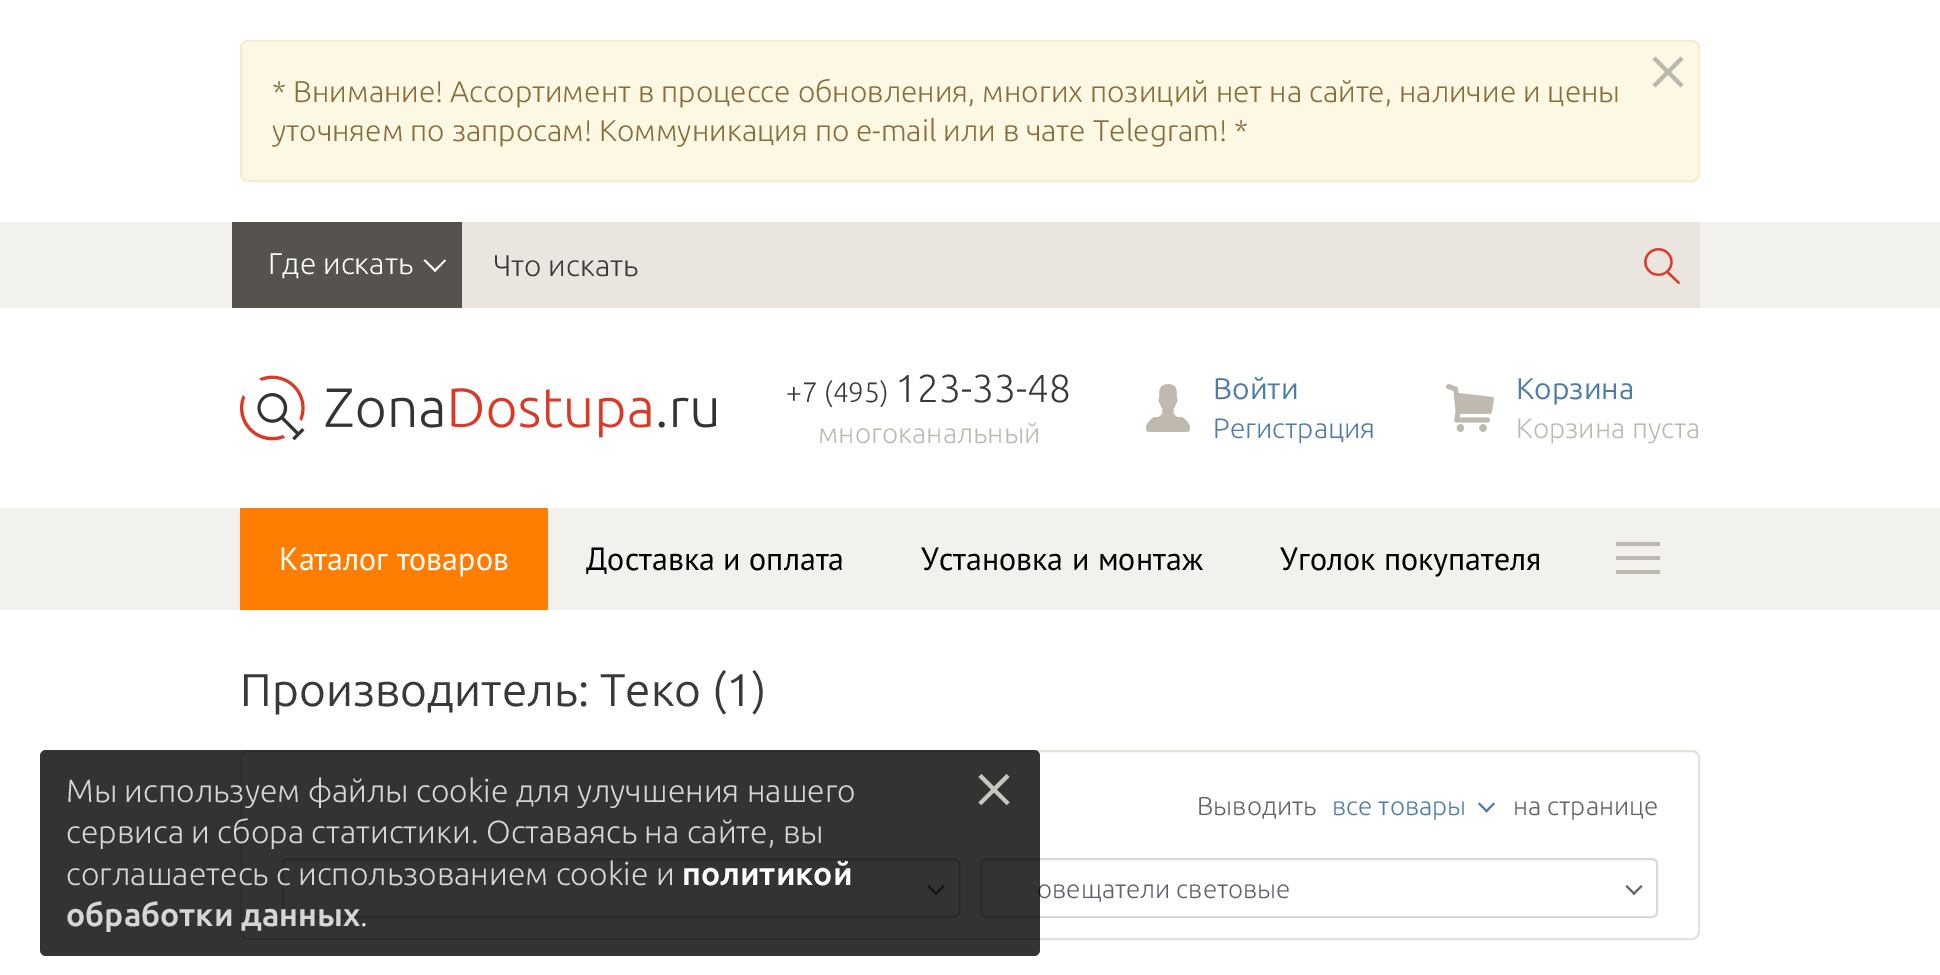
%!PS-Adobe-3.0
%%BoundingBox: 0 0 1940 975
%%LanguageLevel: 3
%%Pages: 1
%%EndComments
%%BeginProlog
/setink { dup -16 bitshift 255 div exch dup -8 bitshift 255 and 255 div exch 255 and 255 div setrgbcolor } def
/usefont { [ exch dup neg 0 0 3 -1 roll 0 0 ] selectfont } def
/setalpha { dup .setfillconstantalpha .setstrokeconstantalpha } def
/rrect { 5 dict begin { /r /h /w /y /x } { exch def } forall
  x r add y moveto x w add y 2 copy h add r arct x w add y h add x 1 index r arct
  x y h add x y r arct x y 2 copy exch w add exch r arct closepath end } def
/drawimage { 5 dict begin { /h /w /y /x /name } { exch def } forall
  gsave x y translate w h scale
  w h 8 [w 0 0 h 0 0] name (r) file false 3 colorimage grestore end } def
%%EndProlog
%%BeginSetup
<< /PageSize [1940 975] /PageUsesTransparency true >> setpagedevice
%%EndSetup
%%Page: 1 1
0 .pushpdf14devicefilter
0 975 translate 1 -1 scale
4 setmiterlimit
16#FFFFFF setink
0 0 1940 975 rectfill
16#FCF8E3 setink
241 41 1458 140 7 rrect gsave fill grestore
16#FAEBCC setink
2 setlinewidth
stroke
16#BAB8AF setink
1655.5 56.5 moveto 1683.5 84.5 lineto 1680.5 87.5 lineto 1652.5 59.5 lineto closepath fill
1652.5 84.5 moveto 1680.5 56.5 lineto 1683.5 59.5 lineto 1655.5 87.5 lineto closepath fill
/Ubuntu-Light 30 usefont
16#8A6D3B setink
272 102 moveto (* Внимание! Ассортимент в процессе обновления, многих позиций нет на сайте, наличие и цены) show
272 141 moveto (уточняем по запросам! Коммуникация по e-mail или в чате Telegram! *) show
16#F3F1ED setink
0 222 1940 86 rectfill
16#56534E setink
232 222 230 86 rectfill
16#FFFFFF setink
268 274 moveto (Где искать) show
445 259.5 moveto 446 260.5 lineto 435 272 lineto 433.5 270.5 lineto closepath fill
425 259.5 moveto 436.5 270.5 lineto 435 272 lineto 423.5 260.5 lineto closepath fill
16#EAE6DF setink
462 222 1238 86 rectfill
16#393939 setink
493 276 moveto (Что искать) show
(img1.raw) 1644 248 36 36 drawimage
(img2.raw) 240 375 476 66 drawimage
/Ubuntu-Light 28 usefont
786 402 moveto (+7 \(495\)) show
/Ubuntu-Light 39 usefont
895 402 moveto (123-33-48) show
/Ubuntu-Light 28 usefont
16#BDB9B0 setink
818 443 moveto (многоканальный) show
(img3.raw) 1146 384 44 48 drawimage
/Ubuntu-Regular 30 usefont
16#4D7BAA setink
1213 399 moveto (Войти) show
/Ubuntu-Light 28 usefont
1213 438 moveto (Регистрация) show
(img4.raw) 1446 384 48 48 drawimage
/Ubuntu-Regular 30 usefont
1516 399 moveto (Корзина) show
/Ubuntu-Light 28 usefont
16#BDB9B0 setink
1516 438 moveto (Корзина пуста) show
16#F3F1ED setink
0 508 1940 102 rectfill
16#FF7D00 setink
240 508 308 102 rectfill
/PTSans-Regular 32 usefont
16#FFFFFF setink
279 570 moveto (Каталог товаров) show
16#000000 setink
[
    [(Доставка и оплата) 586 570]
    [(Установка и монтаж) 921 570]
    [(Уголок покупателя) 1280 570]
] { aload pop moveto show } forall
[
    [1616 542 44 4 16#BDB9B0]
    [1616 570 44 4 16#BDB9B0]
    [1616 556 44 4 16#BDB9B0]
] { aload pop setink rectfill } forall
/Ubuntu-Regular 46 usefont
16#393939 setink
240 706 moveto (Производитель: Теко \(1\)) show
16#E4E0DB setink
241 751 1458 188 7 rrect stroke
/Ubuntu-Light 26 usefont
16#5E636C setink
1197 815 moveto (Выводить) show
16#4D7BAA setink
1332 815 moveto (все товары) show
1493.5 802.5 moveto 1495 804 lineto 1486.5 812.5 lineto 1485 811 lineto closepath fill
1479.5 802.5 moveto 1488 811 lineto 1486.5 812.5 lineto 1478 804 lineto closepath fill
16#5E636C setink
1513 815 moveto (на странице) show
16#D9D9D9 setink
283 859 676 58 5 rrect stroke
16#5E636C setink
943 885 moveto 944.5 886.5 lineto 936 895 lineto 934.5 893.5 lineto closepath fill
929 885 moveto 937.5 893.5 lineto 936 895 lineto 927.5 886.5 lineto closepath fill
16#D9D9D9 setink
981 859 676 58 5 rrect stroke
16#5E636C setink
1037 898 moveto (овещатели световые) show
1641 885 moveto 1642.5 886.5 lineto 1634 895 lineto 1632.5 893.5 lineto closepath fill
1627 885 moveto 1635.5 893.5 lineto 1634 895 lineto 1625.5 886.5 lineto closepath fill
0.8 setalpha
16#000000 setink
40 750 1000 206 6 rrect fill
/Ubuntu-Light 32 usefont
1 setalpha
16#D6D6D6 setink
[
    [(Мы используем файлы cookie для улучшения нашего) 66 802]
    [(сервиса и сбора статистики. Оставаясь на сайте, вы) 66 843]
    [(соглашаетесь с использованием cookie и) 66 885]
] { aload pop moveto show } forall
/Ubuntu-Bold 32 usefont
16#FFFFFF setink
682 885 moveto (политикой) show
16#D6D6D6 setink
66 926 moveto (обработки данных) show
/Ubuntu-Light 32 usefont
16#FFFFFF setink
360 926 moveto (.) show
16#C8C6BF setink
981.5 774 moveto 1009.5 802.5 lineto 1006.5 805 lineto 978.5 777 lineto closepath fill
978.5 802.5 moveto 1006.5 774 lineto 1009.5 777 lineto 981.5 805 lineto closepath fill
.poppdf14devicefilter showpage
%%EOF
